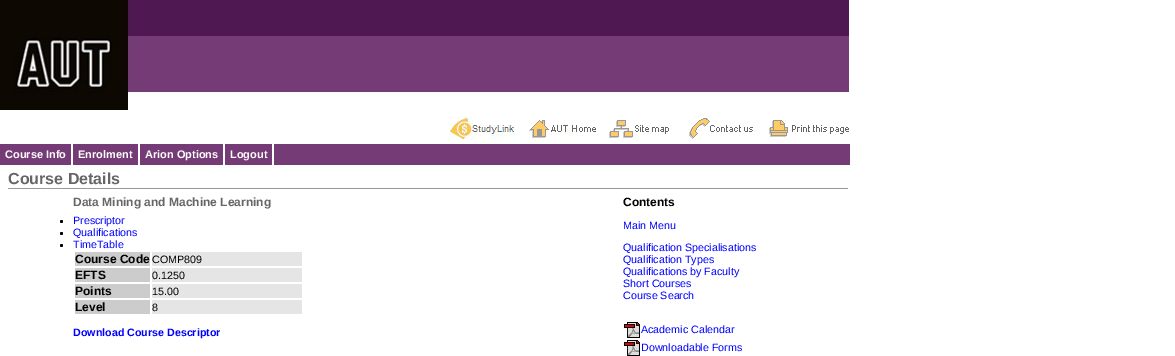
%!PS-Adobe-3.0
%%BoundingBox: 0 0 1175 356
%%LanguageLevel: 3
%%Pages: 1
%%EndComments
%%BeginProlog
/setink { dup -16 bitshift 255 div exch dup -8 bitshift 255 and 255 div exch 255 and 255 div setrgbcolor } def
/usefont { [ exch dup neg 0 0 3 -1 roll 0 0 ] selectfont } def
/disc { newpath 0 360 arc closepath } def
/drawimage { 5 dict begin { /h /w /y /x /name } { exch def } forall
  gsave x y translate w h scale
  w h 8 [w 0 0 h 0 0] name (r) file false 3 colorimage grestore end } def
%%EndProlog
%%BeginSetup
<< /PageSize [1175 356] >> setpagedevice
%%EndSetup
%%Page: 1 1
0 356 translate 1 -1 scale
4 setmiterlimit
16#FFFFFF setink
0 0 1175 356 rectfill
(img1.raw) 0 0 849 111 drawimage
(img2.raw) 449 117 67 23 drawimage
(img3.raw) 529 120 67 18 drawimage
(img4.raw) 609 120 60 18 drawimage
(img5.raw) 689 118 64 21 drawimage
(img6.raw) 769 120 80 17 drawimage
16#753B76 setink
0 144 850 21 rectfill
16#FFFFFF setink
71 144 2 21 rectfill
/LiberationSans-Bold 11 usefont
5 158 moveto (Course Info) show
138 144 2 21 rectfill
78 158 moveto (Enrolment) show
223 144 2 21 rectfill
145 158 moveto (Arion Options) show
272 144 2 21 rectfill
230 158 moveto (Logout) show
/LiberationSans-Bold 16 usefont
16#666666 setink
8 184 moveto (Course Details) show
16#999999 setink
8 188 840 1 rectfill
/LiberationSans-Bold 12 usefont
16#666666 setink
73 206 moveto (Data Mining and Machine Learning) show
16#000000 setink
61.5 221.5 1.5 disc fill
/LiberationSans-Regular 10.7 usefont
16#0000FF setink
73 224 moveto (Prescriptor) show
16#000000 setink
61.5 233.5 1.5 disc fill
16#0000FF setink
73 236 moveto (Qualifications) show
16#000000 setink
61.5 245.5 1.5 disc fill
16#0000FF setink
73 248 moveto (TimeTable) show
16#CCCCCC setink
75 252 75 14 rectfill
/LiberationSans-Bold 12 usefont
16#000000 setink
75 263 moveto (Course Code) show
16#E5E5E5 setink
152 252 150 14 rectfill
/LiberationSans-Regular 10.7 usefont
16#000000 setink
152 263 moveto (COMP809) show
16#CCCCCC setink
75 268 75 14 rectfill
/LiberationSans-Bold 12 usefont
16#000000 setink
75 279 moveto (EFTS) show
16#E5E5E5 setink
152 268 150 14 rectfill
/LiberationSans-Regular 10.7 usefont
16#000000 setink
152 279 moveto (0.1250) show
16#CCCCCC setink
75 284 75 14 rectfill
/LiberationSans-Bold 12 usefont
16#000000 setink
75 295 moveto (Points) show
16#E5E5E5 setink
152 284 150 14 rectfill
/LiberationSans-Regular 10.7 usefont
16#000000 setink
152 295 moveto (15.00) show
16#CCCCCC setink
75 300 75 14 rectfill
/LiberationSans-Bold 12 usefont
16#000000 setink
75 311 moveto (Level) show
16#E5E5E5 setink
152 300 150 14 rectfill
/LiberationSans-Regular 10.7 usefont
16#000000 setink
152 311 moveto (8) show
/LiberationSans-Bold 10.7 usefont
16#0000FF setink
73 336 moveto (Download Course Descriptor) show
/LiberationSans-Bold 12 usefont
16#000000 setink
623 206 moveto (Contents) show
/LiberationSans-Regular 10.7 usefont
16#0000FF setink
[
    [(Main Menu) 623 229]
    [(Qualification Specialisations) 623 251]
    [(Qualification Types) 623 263]
    [(Qualifications by Faculty) 623 275]
    [(Short Courses) 623 287]
    [(Course Search) 623 299]
] { aload pop moveto show } forall
(img7.raw) 624 322 16 16 drawimage
641 333 moveto (Academic Calendar) show
(img7.raw) 624 340 16 16 drawimage
641 351 moveto (Downloadable Forms) show
showpage
%%EOF
